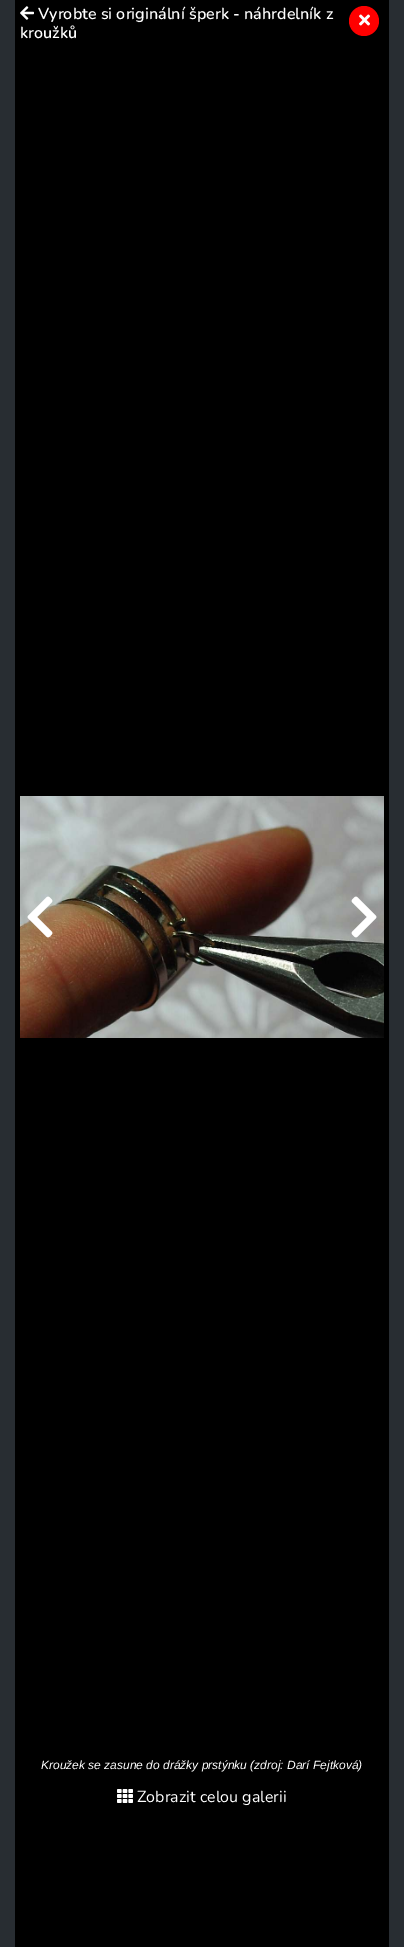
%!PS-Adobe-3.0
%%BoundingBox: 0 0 404 1947
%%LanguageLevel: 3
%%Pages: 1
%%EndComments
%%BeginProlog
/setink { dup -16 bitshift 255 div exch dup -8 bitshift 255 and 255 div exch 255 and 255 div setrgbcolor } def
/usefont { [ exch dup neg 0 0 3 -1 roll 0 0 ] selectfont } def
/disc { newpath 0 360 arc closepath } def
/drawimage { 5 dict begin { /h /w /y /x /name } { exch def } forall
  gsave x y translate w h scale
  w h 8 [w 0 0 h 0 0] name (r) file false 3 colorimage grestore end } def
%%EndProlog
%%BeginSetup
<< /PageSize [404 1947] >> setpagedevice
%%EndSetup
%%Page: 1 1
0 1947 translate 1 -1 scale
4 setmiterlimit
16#282D32 setink
0 0 404 1947 rectfill
16#000000 setink
15 0 374 1947 rectfill
(img1.raw) 20 6 14 14 drawimage
/Nunito-SemiBold 16 usefont
16#FFFFFF setink
38 19 moveto (Vyrobte si originální šperk - náhrdelník z) show
20 38 moveto (kroužků) show
16#FF0000 setink
364 21 15 disc fill
(img2.raw) 359 14 11 12 drawimage
(img5.raw) 20 796 364 242 drawimage
(img3.raw) 27 896 26 42 drawimage
(img4.raw) 351 896 26 42 drawimage
/LiberationSans-Italic 12 usefont
16#FFFFFF setink
41 1769 moveto (Kroužek se zasune do drážky prstýnku \(zdroj: Darí Fejtková\)) show
(img6.raw) 117 1789 16 14 drawimage
/Nunito-Regular 16 usefont
137 1802 moveto (Zobrazit celou galerii) show
showpage
%%EOF
